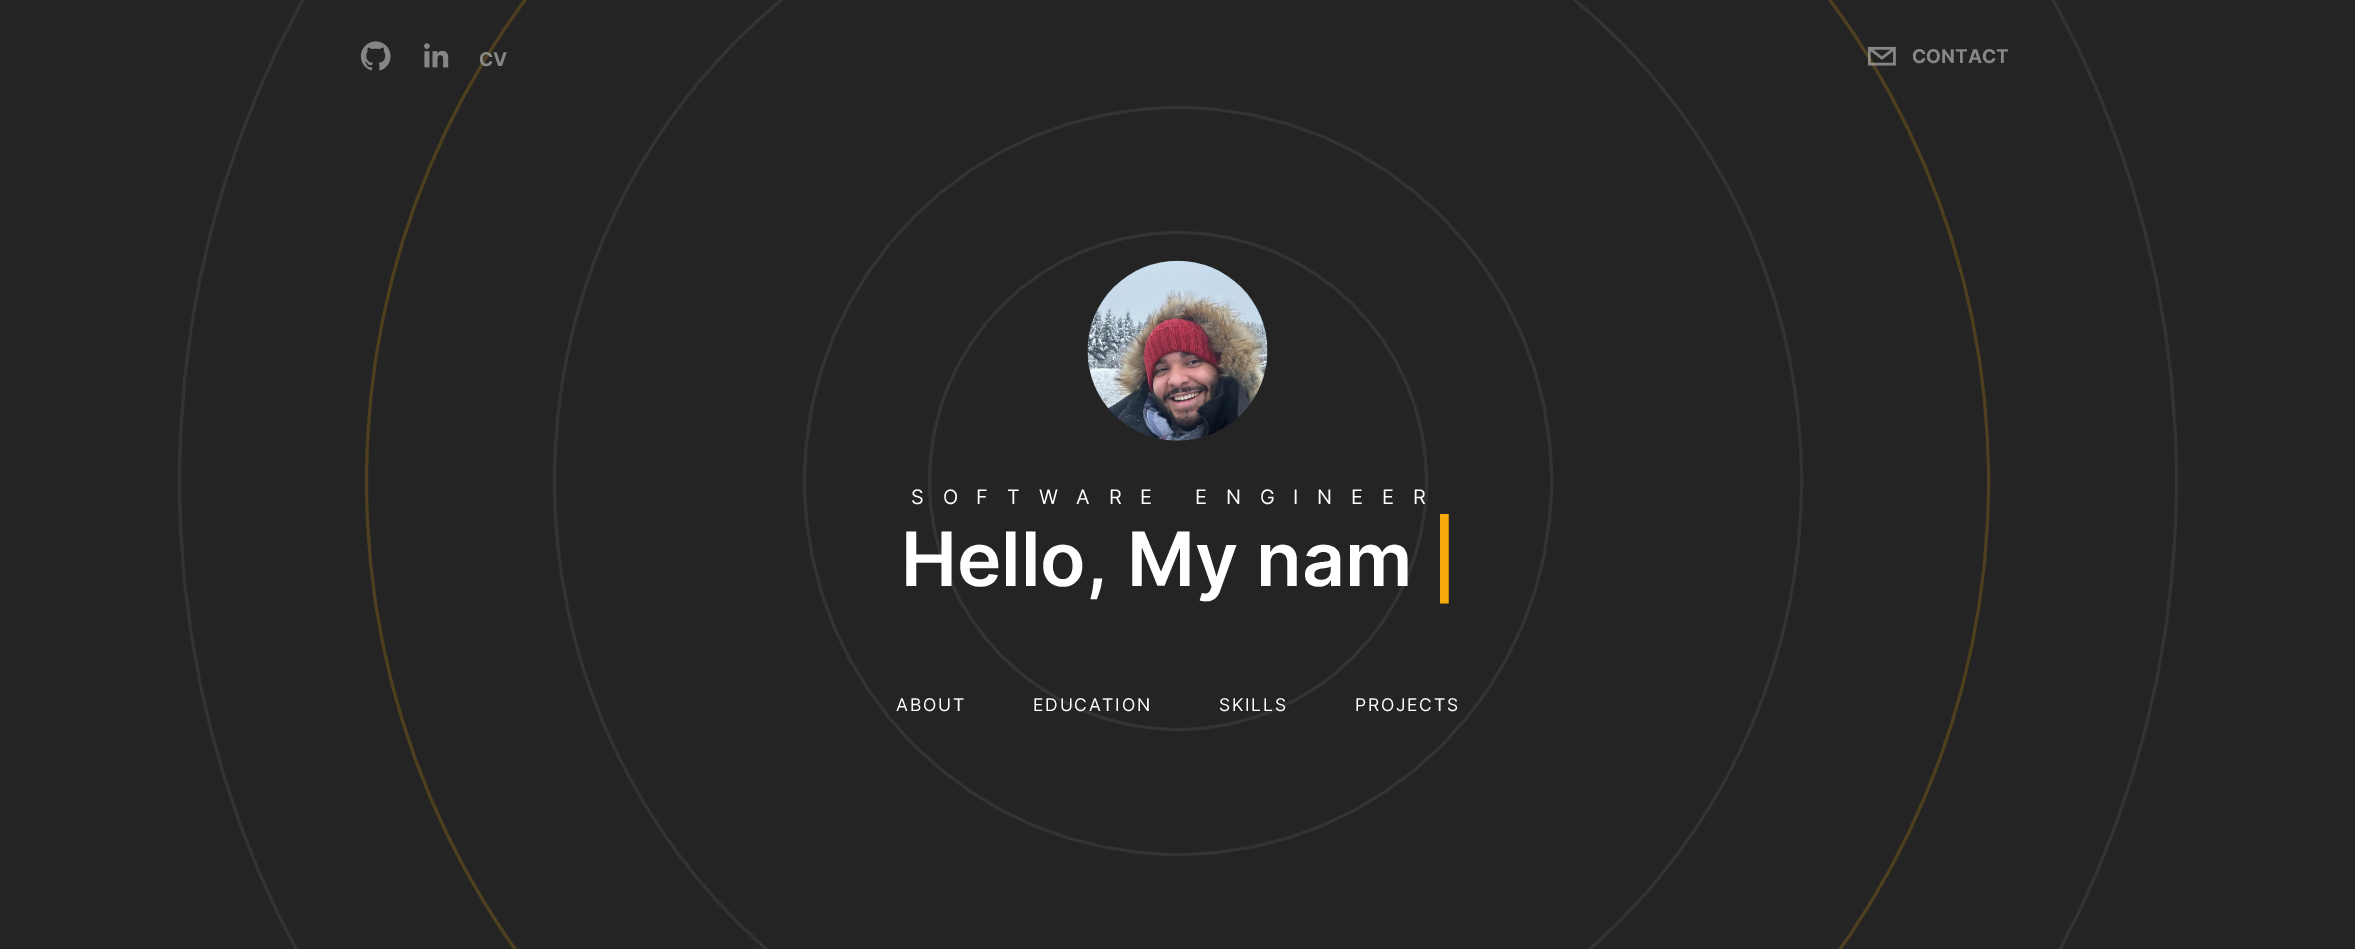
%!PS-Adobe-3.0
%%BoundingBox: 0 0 2355 949
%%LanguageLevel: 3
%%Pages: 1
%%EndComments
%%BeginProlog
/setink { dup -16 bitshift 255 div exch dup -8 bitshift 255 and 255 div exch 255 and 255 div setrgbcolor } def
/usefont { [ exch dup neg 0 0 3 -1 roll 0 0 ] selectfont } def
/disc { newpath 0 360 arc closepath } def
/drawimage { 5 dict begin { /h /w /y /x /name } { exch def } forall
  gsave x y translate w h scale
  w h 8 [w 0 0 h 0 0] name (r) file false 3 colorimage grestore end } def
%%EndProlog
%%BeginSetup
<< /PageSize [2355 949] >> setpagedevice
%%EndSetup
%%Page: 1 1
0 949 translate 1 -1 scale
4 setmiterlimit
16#242424 setink
0 0 2355 949 rectfill
16#333333 setink
3 setlinewidth
1178 481 248.5 disc stroke
1178 481 373.5 disc stroke
1178 481 623.5 disc stroke
16#4E3F1F setink
1177.5 481.5 811 disc stroke
16#333333 setink
1178 481 998.5 disc stroke
(img1.raw) 360 41 31 30 drawimage
(img2.raw) 424 43 25 25 drawimage
/Inter-Bold 19 usefont
16#878786 setink
479 66 moveto (CV) show
(img3.raw) 1867 46 29 20 drawimage
1912 63 moveto (CONTACT) show
(img4.raw) 1087 260 181 181 drawimage
/Inter-Regular 20 usefont
16#FFFFFF setink
911 504 moveto 18.75 0 (SOFTWARE ENGINEER) ashow
/Inter-SemiBold 75 usefont
901 586 moveto (Hello, My nam) show
16#F7AB0A setink
1431 586 moveto (|) show
/Inter-Regular 17.5 usefont
16#FFFFFF setink
896 711 moveto 1.75 0 (ABOUT) ashow
1033 711 moveto 1.75 0 (EDUCATION) ashow
1219 711 moveto 1.75 0 (SKILLS) ashow
1355 711 moveto 1.75 0 (PROJECTS) ashow
showpage
%%EOF
